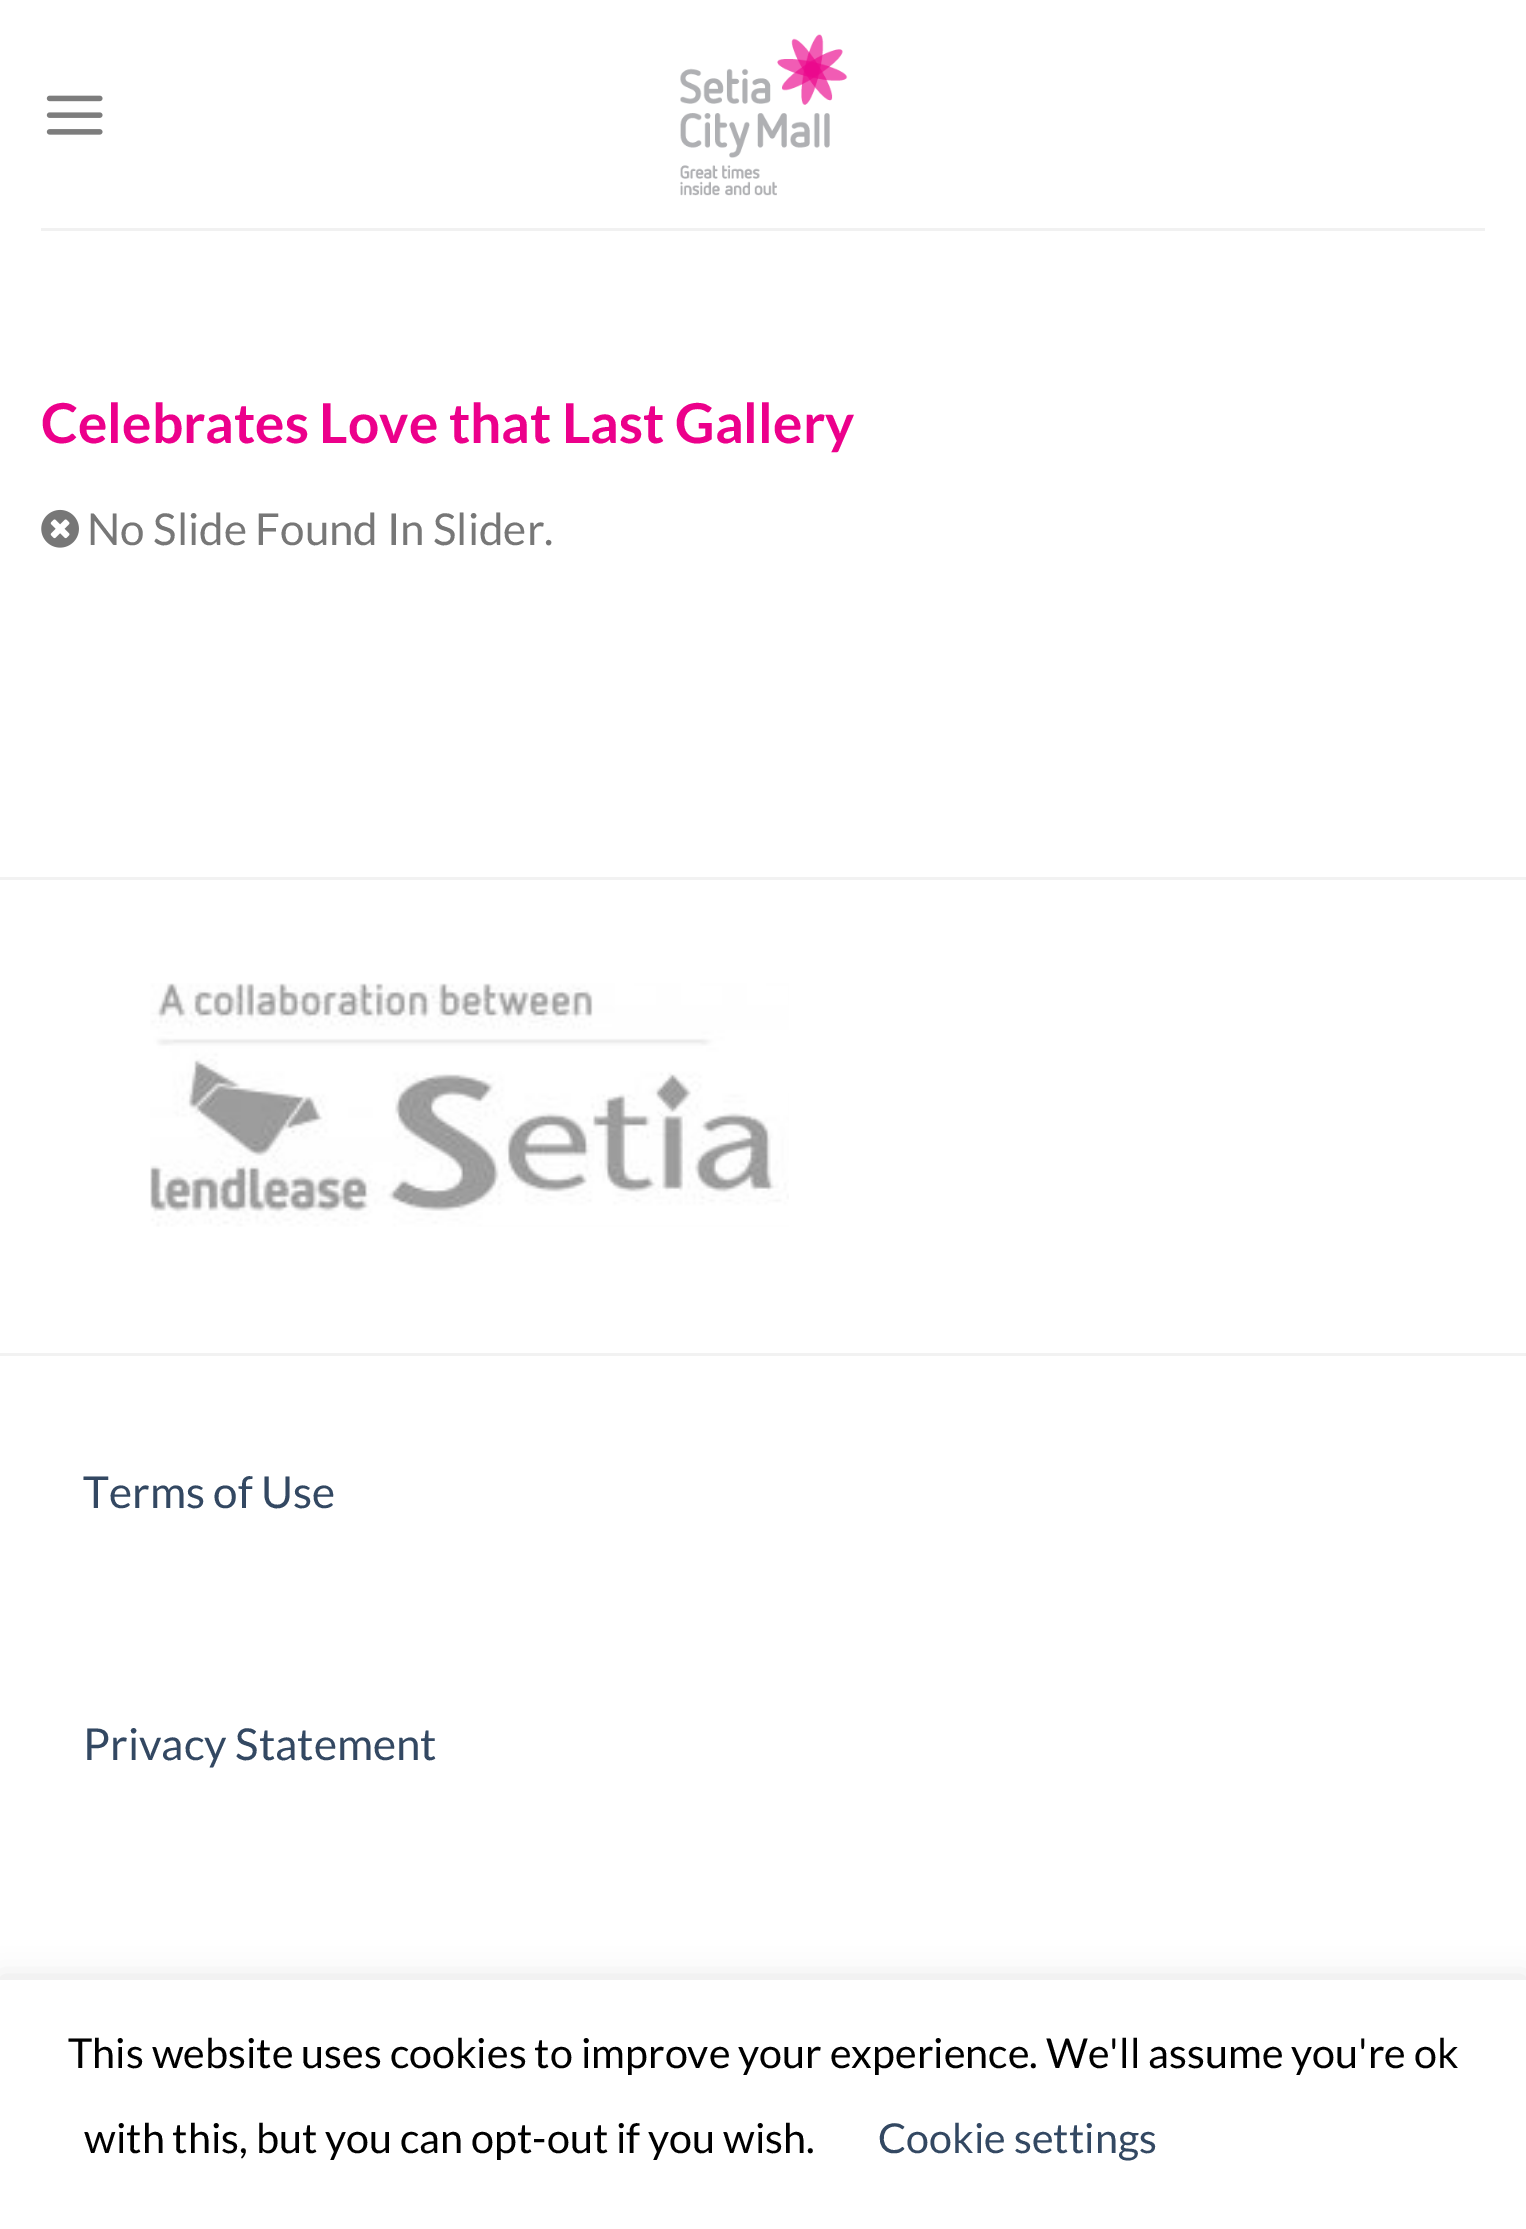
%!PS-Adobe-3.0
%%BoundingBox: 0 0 1526 2229
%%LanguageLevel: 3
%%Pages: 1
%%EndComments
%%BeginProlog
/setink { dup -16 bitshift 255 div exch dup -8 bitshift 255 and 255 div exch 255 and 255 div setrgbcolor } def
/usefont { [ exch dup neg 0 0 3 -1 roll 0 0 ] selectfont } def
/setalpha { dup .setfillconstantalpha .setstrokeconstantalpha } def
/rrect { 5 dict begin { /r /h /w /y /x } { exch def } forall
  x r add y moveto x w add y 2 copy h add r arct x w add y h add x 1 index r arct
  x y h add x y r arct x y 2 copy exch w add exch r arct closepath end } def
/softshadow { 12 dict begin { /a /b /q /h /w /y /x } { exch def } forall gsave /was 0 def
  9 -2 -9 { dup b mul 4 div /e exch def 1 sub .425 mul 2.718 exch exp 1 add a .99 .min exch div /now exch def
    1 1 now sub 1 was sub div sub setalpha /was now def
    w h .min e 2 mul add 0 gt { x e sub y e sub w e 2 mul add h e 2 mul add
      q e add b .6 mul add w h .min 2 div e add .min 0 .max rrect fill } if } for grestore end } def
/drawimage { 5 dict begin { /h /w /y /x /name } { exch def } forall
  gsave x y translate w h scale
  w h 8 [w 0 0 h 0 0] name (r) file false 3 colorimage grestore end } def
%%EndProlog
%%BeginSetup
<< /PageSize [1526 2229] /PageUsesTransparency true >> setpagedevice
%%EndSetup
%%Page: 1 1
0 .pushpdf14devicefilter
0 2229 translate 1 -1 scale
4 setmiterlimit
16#FFFFFF setink
0 0 1526 2229 rectfill
(img1.raw) 46 95 57 40 drawimage
(img2.raw) 680 34 168 162 drawimage
16#F1F1F1 setink
41 228 1444 3 rectfill
/Lato-Bold 55 usefont
16#EC008B setink
41 443 moveto (Celebrates Love that Last Gallery) show
(img3.raw) 41 509 38 39 drawimage
/Lato-Regular 44 usefont
16#777777 setink
87 545 moveto (No Slide Found In Slider.) show
16#F2F2F2 setink
0 877 1526 3 rectfill
(img4.raw) 150 983 639 244 drawimage
0 1353 1526 3 rectfill
16#334862 setink
83 1508 moveto (Terms of Use) show
83 1760 moveto (Privacy Statement) show
16#ACABAB setink
0 1977 1526 251 0 14 0.3 softshadow
16#FFFFFF setink
0 1980 1526 249 rectfill
/Lato-Regular 41.25 usefont
16#000000 setink
68 2068 moveto (This website uses cookies to improve your experience. We'll assume you're ok) show
84 2153 moveto (with this, but you can opt-out if you wish.) show
16#334862 setink
878 2153 moveto (Cookie settings) show
.poppdf14devicefilter showpage
%%EOF
